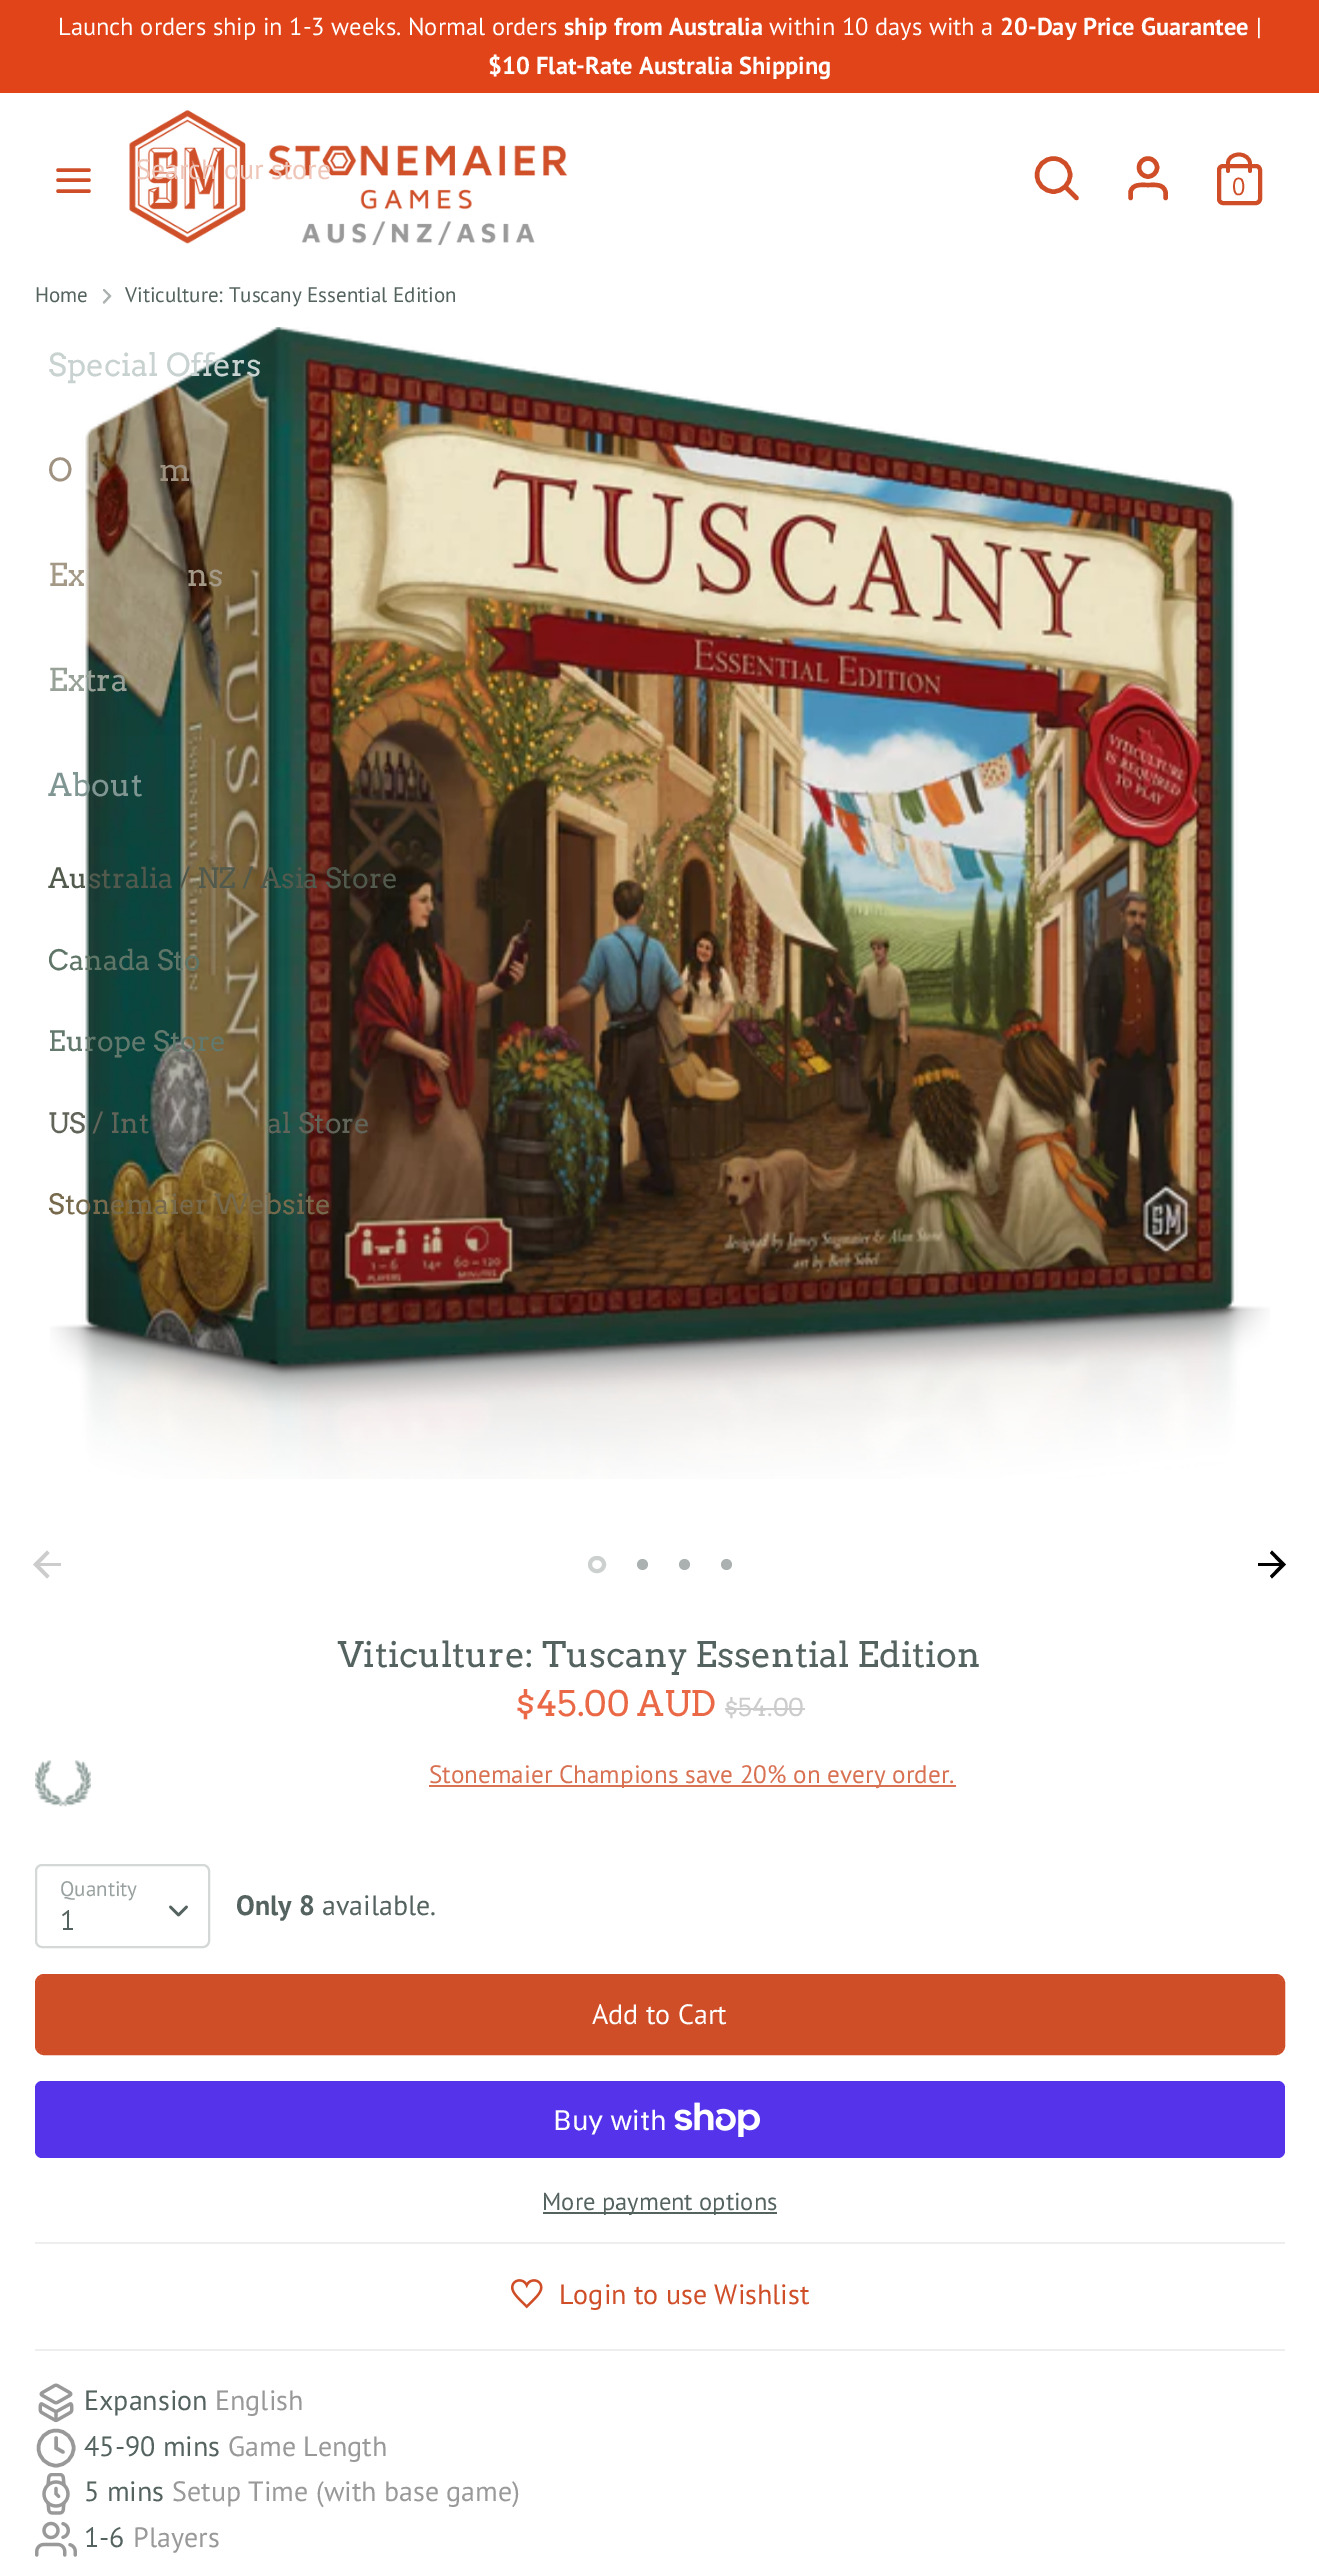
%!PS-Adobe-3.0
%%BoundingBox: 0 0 1319 2567
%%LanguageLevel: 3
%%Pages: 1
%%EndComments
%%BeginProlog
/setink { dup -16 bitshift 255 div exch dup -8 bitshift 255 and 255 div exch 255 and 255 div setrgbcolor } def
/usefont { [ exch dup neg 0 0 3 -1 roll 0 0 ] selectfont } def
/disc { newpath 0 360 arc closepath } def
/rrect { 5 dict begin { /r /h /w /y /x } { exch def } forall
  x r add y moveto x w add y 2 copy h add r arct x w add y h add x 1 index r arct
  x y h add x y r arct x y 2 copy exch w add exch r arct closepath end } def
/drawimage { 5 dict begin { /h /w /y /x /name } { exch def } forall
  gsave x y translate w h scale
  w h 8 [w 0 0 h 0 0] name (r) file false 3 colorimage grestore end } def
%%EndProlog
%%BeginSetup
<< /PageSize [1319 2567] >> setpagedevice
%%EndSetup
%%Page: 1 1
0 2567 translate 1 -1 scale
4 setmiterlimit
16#FFFFFF setink
0 0 1319 2567 rectfill
16#E2441A setink
0 0 1319 93 rectfill
/PTSans-Regular 24.5 usefont
16#FFFFFF setink
58 35 moveto (Launch orders ship in 1-3 weeks. Normal orders) show
/PTSans-Bold 24.5 usefont
564 35 moveto (ship from Australia) show
/PTSans-Regular 24.5 usefont
769 35 moveto (within 10 days with a) show
/PTSans-Bold 24.5 usefont
1000 35 moveto (20-Day Price Guarantee) show
/PTSans-Regular 24.5 usefont
1256 35 moveto (|) show
/PTSans-Bold 24.5 usefont
488 74 moveto ($10 Flat-Rate Australia Shipping) show
(img1.raw) 129 110 438 136 drawimage
/PTSans-Regular 28 usefont
16#EFC5B8 setink
136 179 moveto (Search our store) show
(img2.raw) 50 327 1220 1152 drawimage
/Arvo-Regular 31.5 usefont
16#C8D2D0 setink
48 376 moveto (Special Offers) show
16#A09281 setink
48 481 moveto (O) show
159 481 moveto (m) show
16#A49987 setink
48 586 moveto (Ex) show
187 586 moveto (ns) show
16#97A198 setink
48 691 moveto (Extra) show
16#7F9692 setink
48 796 moveto (About) show
/Arvo-Regular 28 usefont
16#515A4D setink
48 888 moveto (Australia / NZ / Asia Store) show
16#5E7567 setink
48 970 moveto (Canada Sto) show
16#63796D setink
48 1051 moveto (Europe Store) show
16#616559 setink
48 1133 moveto (US / Int) show
267 1133 moveto (al Store) show
16#776A4C setink
48 1214 moveto (Stonemaier Website) show
16#CF4E28 setink
3.5 setlinewidth
1 setlinecap
58 180 moveto 89 180 lineto 58 170 moveto 89 170 lineto 58 191 moveto 89 191 lineto stroke
4.4 setlinewidth
0 setlinecap
1053.5 175 16.5 disc stroke
1 setlinecap
1076.5 198 moveto 1065.5 187 lineto stroke
1165.5 198 moveto 1165.5 192 lineto 1163.5 183.5 1154.5 185 1148 185 curveto 1141.5 185 1132.5 183.5 1130.5 192 curveto 1130.5 198 lineto stroke
0 setlinecap
1148 167.5 9 disc stroke
4 setlinewidth
1219 166 41 37 4 rrect stroke
3.8 setlinewidth
1 setlinecap
1228 171 moveto 1228 163.5 lineto 1227.5 158.5 1232.5 154.5 1239 154.5 curveto 1245 154.5 1250 158.5 1250 163.5 curveto 1250 171 lineto stroke
/PTSans-Regular 24.5 usefont
1232 195 moveto (0) show
/PTSans-Regular 21 usefont
16#546360 setink
35 302 moveto (Home) show
16#AAB1B0 setink
2.1 setlinewidth
104 302.5 moveto 110 296 lineto 104 290 lineto stroke
16#546360 setink
125 302 moveto (Viticulture: Tuscany Essential Edition) show
16#CCCCCC setink
61 1563 moveto 40 1563 lineto 49.5 1553 lineto 47 1550.5 lineto 33 1564.5 lineto 47 1578.5 lineto 49.5 1576 lineto 40 1566 lineto 61 1566 lineto closepath fill
16#000000 setink
1272 1550.5 moveto 1270 1553 lineto 1279.5 1563 lineto 1258 1563 lineto 1258 1566 lineto 1279.5 1566 lineto 1270 1576 lineto 1272 1578.5 lineto 1286 1564.5 lineto closepath fill
16#CCD0CF setink
4 setlinewidth
0 setlinecap
590 1558 14 13 6.5 rrect stroke
16#AAB1B0 setink
642.5 1564.5 5.5 disc fill
684.5 1564.5 5.5 disc fill
726.5 1564.5 5.5 disc fill
/Arvo-Regular 35 usefont
16#546360 setink
338 1667 moveto (Viticulture: Tuscany Essential Edition) show
16#EA6845 setink
515 1716 moveto ($45.00 AUD) show
/Arvo-Regular 24.5 usefont
16#CCCCCC setink
724 1716 moveto ($54.00) show
725 1708 80 2 rectfill
(img3.raw) 35 1760 56 47 drawimage
16#D97153 setink
429 1785 527 2 rectfill
/PTSans-Regular 25.2 usefont
429 1783 moveto (Stonemaier Champions save 20% on every order.) show
16#D4D8D7 setink
2 setlinewidth
36 1865 173 82 6 rrect stroke
/PTSans-Regular 21 usefont
16#98A1A0 setink
60 1896 moveto (Quantity) show
/PTSans-Regular 28 usefont
16#546360 setink
60 1930 moveto (1) show
2.6 setlinewidth
1 setlinecap
1 setlinejoin
170.5 1907 moveto 178.5 1915 lineto 186.5 1907 lineto stroke
/PTSans-Bold 28 usefont
236 1915 moveto (Only 8) show
/PTSans-Regular 28 usefont
322 1915 moveto (available.) show
16#CF4E28 setink
2 setlinewidth
0 setlinecap
0 setlinejoin
36 1975 1248 79 8 rrect stroke
37 1976 1246 77 7 rrect fill
16#FFFFFF setink
592 2024 moveto (Add to Cart) show
16#5433EB setink
35 2081 1250 77 7 rrect fill
/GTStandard-Regular 28 usefont
16#FFFFFF setink
553 2130 moveto (Buy with) show
(img4.raw) 674 2102 86 35 drawimage
16#546360 setink
543 2212 234 2 rectfill
/PTSans-Regular 24.5 usefont
542 2210 moveto (More payment options) show
16#EEEEEE setink
35 2242 1250 2 rectfill
(img5.raw) 511 2279 32 30 drawimage
/PTSans-Regular 28 usefont
16#CF4E28 setink
559 2304 moveto (Login to use Wishlist) show
16#EEEEEE setink
35 2349 1250 2 rectfill
(img6.raw) 38 2383 36 40 drawimage
16#546360 setink
84 2410 moveto (Expansion) show
16#999999 setink
215 2410 moveto (English) show
3.5 setlinewidth
56 2448 17.5 disc stroke
1 setlinecap
56 2438 moveto 56 2448 lineto 63 2452 lineto stroke
16#546360 setink
84 2456 moveto (45-90 mins) show
16#999999 setink
228 2456 moveto (Game Length) show
(img7.raw) 42 2473 28 42 drawimage
16#546360 setink
84 2501 moveto (5 mins) show
16#999999 setink
172 2501 moveto (Setup Time \(with base game\)) show
(img8.raw) 35 2521 42 36 drawimage
16#546360 setink
84 2547 moveto (1-6) show
16#999999 setink
133 2547 moveto (Players) show
showpage
%%EOF
